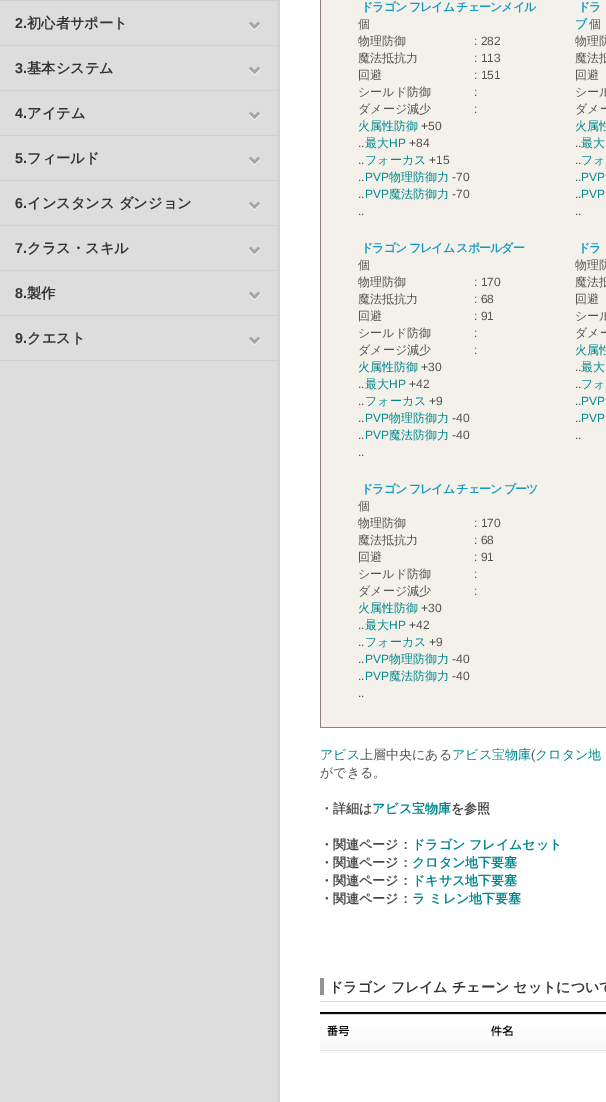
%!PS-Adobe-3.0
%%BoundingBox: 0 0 606 1102
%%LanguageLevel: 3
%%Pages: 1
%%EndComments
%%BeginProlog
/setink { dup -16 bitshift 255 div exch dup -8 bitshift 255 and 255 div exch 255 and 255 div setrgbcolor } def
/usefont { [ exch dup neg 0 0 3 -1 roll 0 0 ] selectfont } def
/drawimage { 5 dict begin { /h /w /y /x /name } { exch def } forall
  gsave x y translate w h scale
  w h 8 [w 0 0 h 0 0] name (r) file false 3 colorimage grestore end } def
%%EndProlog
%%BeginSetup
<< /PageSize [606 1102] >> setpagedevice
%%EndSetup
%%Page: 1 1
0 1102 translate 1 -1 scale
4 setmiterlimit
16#FFFFFF setink
0 0 606 1102 rectfill
(img1.raw) 0 1 280 1101 drawimage
16#D1D1D1 setink
0 0 280 1 rectfill
0 45 280 1 rectfill
(img2.raw) 249 21 11 10 drawimage
/LiberationSans-Bold 14.25 usefont
16#333333 setink
15 28 moveto (2.) show
/WenQuanYiZenHei-Bold 14.25 usefont
27 28 moveto (初心者サポート) show
16#D1D1D1 setink
0 90 280 1 rectfill
(img2.raw) 249 66 11 10 drawimage
/LiberationSans-Bold 14.25 usefont
16#333333 setink
15 73 moveto (3.) show
/WenQuanYiZenHei-Bold 14.25 usefont
27 73 moveto (基本システム) show
16#D1D1D1 setink
0 135 280 1 rectfill
(img2.raw) 249 111 11 10 drawimage
/LiberationSans-Bold 14.25 usefont
16#333333 setink
15 118 moveto (4.) show
/WenQuanYiZenHei-Bold 14.25 usefont
27 118 moveto (アイテム) show
16#D1D1D1 setink
0 180 280 1 rectfill
(img2.raw) 249 156 11 10 drawimage
/LiberationSans-Bold 14.25 usefont
16#333333 setink
15 163 moveto (5.) show
/WenQuanYiZenHei-Bold 14.25 usefont
27 163 moveto (フィールド) show
16#D1D1D1 setink
0 225 280 1 rectfill
(img2.raw) 249 201 11 10 drawimage
/LiberationSans-Bold 14.25 usefont
16#333333 setink
15 208 moveto (6.) show
/WenQuanYiZenHei-Bold 14.25 usefont
27 208 moveto (インスタンス ダンジョン) show
16#D1D1D1 setink
0 270 280 1 rectfill
(img2.raw) 249 246 11 10 drawimage
/LiberationSans-Bold 14.25 usefont
16#333333 setink
15 253 moveto (7.) show
/WenQuanYiZenHei-Bold 14.25 usefont
27 253 moveto (クラス・スキル) show
16#D1D1D1 setink
0 315 280 1 rectfill
(img2.raw) 249 291 11 10 drawimage
/LiberationSans-Bold 14.25 usefont
16#333333 setink
15 298 moveto (8.) show
/WenQuanYiZenHei-Bold 14.25 usefont
27 298 moveto (製作) show
16#D1D1D1 setink
0 360 280 1 rectfill
(img2.raw) 249 336 11 10 drawimage
/LiberationSans-Bold 14.25 usefont
16#333333 setink
15 343 moveto (9.) show
/WenQuanYiZenHei-Bold 14.25 usefont
27 343 moveto (クエスト) show
[
    [321 0 285 727 16#F4F1EB]
    [320 727 286 1 16#908080]
    [320 0 1 728 16#908080]
] { aload pop setink rectfill } forall
/WenQuanYiZenHei-Bold 12 usefont
16#1699C4 setink
361 11 moveto -1 0 (ドラゴン フレイム チェーンメイル) ashow
/WenQuanYiZenHei-Medium 12 usefont
16#535352 setink
358 28 moveto (個) show
358 45 moveto (物理防御) show
/LiberationSans-Regular 12 usefont
474 45 moveto (: 282) show
/WenQuanYiZenHei-Medium 12 usefont
358 62 moveto (魔法抵抗力) show
/LiberationSans-Regular 12 usefont
474 62 moveto (: 113) show
/WenQuanYiZenHei-Medium 12 usefont
358 79 moveto (回避) show
/LiberationSans-Regular 12 usefont
474 79 moveto (: 151) show
/WenQuanYiZenHei-Medium 12 usefont
358 96 moveto (シールド防御) show
/LiberationSans-Regular 12 usefont
474 96 moveto (:) show
/WenQuanYiZenHei-Medium 12 usefont
358 113 moveto (ダメージ減少) show
/LiberationSans-Regular 12 usefont
474 113 moveto (:) show
/WenQuanYiZenHei-Medium 12 usefont
16#01888E setink
358 130 moveto (火属性防御) show
/LiberationSans-Regular 12 usefont
16#535352 setink
421 130 moveto (+50) show
358 147 moveto (..) show
/WenQuanYiZenHei-Medium 12 usefont
16#01888E setink
365 147 moveto (最大) show
/LiberationSans-Regular 12 usefont
389 147 moveto (HP) show
16#535352 setink
409 147 moveto (+84) show
358 164 moveto (..) show
/WenQuanYiZenHei-Medium 12 usefont
16#01888E setink
365 164 moveto (フォーカス) show
/LiberationSans-Regular 12 usefont
16#535352 setink
429 164 moveto (+15) show
358 181 moveto (..) show
16#01888E setink
365 181 moveto (PVP) show
/WenQuanYiZenHei-Medium 12 usefont
389 181 moveto (物理防御力) show
/LiberationSans-Regular 12 usefont
16#535352 setink
452 181 moveto (-70) show
358 198 moveto (..) show
16#01888E setink
365 198 moveto (PVP) show
/WenQuanYiZenHei-Medium 12 usefont
389 198 moveto (魔法防御力) show
/LiberationSans-Regular 12 usefont
16#535352 setink
452 198 moveto (-70) show
358 215 moveto (..) show
/WenQuanYiZenHei-Bold 12 usefont
16#1699C4 setink
578 11 moveto -1 0 (ドラ) ashow
575 28 moveto -1 0 (ブ) ashow
/WenQuanYiZenHei-Medium 12 usefont
16#535352 setink
[
    [(個) 589 28]
    [(物理防) 575 45]
    [(魔法抵) 575 62]
    [(回避) 575 79]
    [(シール) 575 96]
    [(ダメー) 575 113]
] { aload pop moveto show } forall
16#01888E setink
575 130 moveto (火属性) show
/LiberationSans-Regular 12 usefont
16#535352 setink
575 147 moveto (..) show
/WenQuanYiZenHei-Medium 12 usefont
16#01888E setink
581 147 moveto (最大) show
/LiberationSans-Regular 12 usefont
16#535352 setink
575 164 moveto (..) show
/WenQuanYiZenHei-Medium 12 usefont
16#01888E setink
581 164 moveto (フォ) show
/LiberationSans-Regular 12 usefont
16#535352 setink
575 181 moveto (..) show
16#01888E setink
581 181 moveto (PVP) show
16#535352 setink
575 198 moveto (..) show
16#01888E setink
581 198 moveto (PVP) show
16#535352 setink
575 215 moveto (..) show
/WenQuanYiZenHei-Bold 12 usefont
16#1699C4 setink
361 252 moveto -1 0 (ドラゴン フレイム スポールダー) ashow
/WenQuanYiZenHei-Medium 12 usefont
16#535352 setink
358 269 moveto (個) show
358 286 moveto (物理防御) show
/LiberationSans-Regular 12 usefont
474 286 moveto (: 170) show
/WenQuanYiZenHei-Medium 12 usefont
358 303 moveto (魔法抵抗力) show
/LiberationSans-Regular 12 usefont
474 303 moveto (: 68) show
/WenQuanYiZenHei-Medium 12 usefont
358 320 moveto (回避) show
/LiberationSans-Regular 12 usefont
474 320 moveto (: 91) show
/WenQuanYiZenHei-Medium 12 usefont
358 337 moveto (シールド防御) show
/LiberationSans-Regular 12 usefont
474 337 moveto (:) show
/WenQuanYiZenHei-Medium 12 usefont
358 354 moveto (ダメージ減少) show
/LiberationSans-Regular 12 usefont
474 354 moveto (:) show
/WenQuanYiZenHei-Medium 12 usefont
16#01888E setink
358 371 moveto (火属性防御) show
/LiberationSans-Regular 12 usefont
16#535352 setink
421 371 moveto (+30) show
358 388 moveto (..) show
/WenQuanYiZenHei-Medium 12 usefont
16#01888E setink
365 388 moveto (最大) show
/LiberationSans-Regular 12 usefont
389 388 moveto (HP) show
16#535352 setink
409 388 moveto (+42) show
358 405 moveto (..) show
/WenQuanYiZenHei-Medium 12 usefont
16#01888E setink
365 405 moveto (フォーカス) show
/LiberationSans-Regular 12 usefont
16#535352 setink
429 405 moveto (+9) show
358 422 moveto (..) show
16#01888E setink
365 422 moveto (PVP) show
/WenQuanYiZenHei-Medium 12 usefont
389 422 moveto (物理防御力) show
/LiberationSans-Regular 12 usefont
16#535352 setink
452 422 moveto (-40) show
358 439 moveto (..) show
16#01888E setink
365 439 moveto (PVP) show
/WenQuanYiZenHei-Medium 12 usefont
389 439 moveto (魔法防御力) show
/LiberationSans-Regular 12 usefont
16#535352 setink
452 439 moveto (-40) show
358 456 moveto (..) show
/WenQuanYiZenHei-Bold 12 usefont
16#1699C4 setink
578 252 moveto -1 0 (ドラ) ashow
/WenQuanYiZenHei-Medium 12 usefont
16#535352 setink
[
    [(物理防) 575 269]
    [(魔法抵) 575 286]
    [(回避) 575 303]
    [(シール) 575 320]
    [(ダメー) 575 337]
] { aload pop moveto show } forall
16#01888E setink
575 354 moveto (火属性) show
/LiberationSans-Regular 12 usefont
16#535352 setink
575 371 moveto (..) show
/WenQuanYiZenHei-Medium 12 usefont
16#01888E setink
581 371 moveto (最大) show
/LiberationSans-Regular 12 usefont
16#535352 setink
575 388 moveto (..) show
/WenQuanYiZenHei-Medium 12 usefont
16#01888E setink
581 388 moveto (フォ) show
/LiberationSans-Regular 12 usefont
16#535352 setink
575 405 moveto (..) show
16#01888E setink
581 405 moveto (PVP) show
16#535352 setink
575 422 moveto (..) show
16#01888E setink
581 422 moveto (PVP) show
16#535352 setink
575 439 moveto (..) show
/WenQuanYiZenHei-Bold 12 usefont
16#1699C4 setink
361 493 moveto -1 0 (ドラゴン フレイム チェーン ブーツ) ashow
/WenQuanYiZenHei-Medium 12 usefont
16#535352 setink
358 510 moveto (個) show
358 527 moveto (物理防御) show
/LiberationSans-Regular 12 usefont
474 527 moveto (: 170) show
/WenQuanYiZenHei-Medium 12 usefont
358 544 moveto (魔法抵抗力) show
/LiberationSans-Regular 12 usefont
474 544 moveto (: 68) show
/WenQuanYiZenHei-Medium 12 usefont
358 561 moveto (回避) show
/LiberationSans-Regular 12 usefont
474 561 moveto (: 91) show
/WenQuanYiZenHei-Medium 12 usefont
358 578 moveto (シールド防御) show
/LiberationSans-Regular 12 usefont
474 578 moveto (:) show
/WenQuanYiZenHei-Medium 12 usefont
358 595 moveto (ダメージ減少) show
/LiberationSans-Regular 12 usefont
474 595 moveto (:) show
/WenQuanYiZenHei-Medium 12 usefont
16#01888E setink
358 612 moveto (火属性防御) show
/LiberationSans-Regular 12 usefont
16#535352 setink
421 612 moveto (+30) show
358 629 moveto (..) show
/WenQuanYiZenHei-Medium 12 usefont
16#01888E setink
365 629 moveto (最大) show
/LiberationSans-Regular 12 usefont
389 629 moveto (HP) show
16#535352 setink
409 629 moveto (+42) show
358 646 moveto (..) show
/WenQuanYiZenHei-Medium 12 usefont
16#01888E setink
365 646 moveto (フォーカス) show
/LiberationSans-Regular 12 usefont
16#535352 setink
429 646 moveto (+9) show
358 663 moveto (..) show
16#01888E setink
365 663 moveto (PVP) show
/WenQuanYiZenHei-Medium 12 usefont
389 663 moveto (物理防御力) show
/LiberationSans-Regular 12 usefont
16#535352 setink
452 663 moveto (-40) show
358 680 moveto (..) show
16#01888E setink
365 680 moveto (PVP) show
/WenQuanYiZenHei-Medium 12 usefont
389 680 moveto (魔法防御力) show
/LiberationSans-Regular 12 usefont
16#535352 setink
452 680 moveto (-40) show
358 697 moveto (..) show
/WenQuanYiZenHei-Medium 13 usefont
16#01888E setink
320 759 moveto (アビス) show
16#535352 setink
360 759 moveto (上層中央にある) show
16#01888E setink
452 759 moveto (アビス宝物庫) show
/LiberationSans-Regular 13 usefont
16#535352 setink
531 759 moveto (\() show
/WenQuanYiZenHei-Medium 13 usefont
16#01888E setink
535 759 moveto (クロタン地) show
16#535352 setink
320 777 moveto (ができる。) show
/WenQuanYiZenHei-Bold 13 usefont
320 813 moveto (・詳細は) show
16#01888E setink
372 813 moveto (アビス宝物庫) show
16#464646 setink
451 813 moveto (を参照) show
320 849 moveto (・関連ページ：) show
16#01888E setink
412 849 moveto (ドラゴン フレイムセット) show
16#464646 setink
320 867 moveto (・関連ページ：) show
16#01888E setink
412 867 moveto (クロタン地下要塞) show
16#464646 setink
320 885 moveto (・関連ページ：) show
16#01888E setink
412 885 moveto (ドキサス地下要塞) show
16#464646 setink
320 903 moveto (・関連ページ：) show
16#01888E setink
412 903 moveto (ラ ミレン地下要塞) show
16#DDDDDD setink
320 1001 286 1 rectfill
16#929292 setink
320 978 4 17 rectfill
/WenQuanYiZenHei-Bold 14 usefont
16#333333 setink
329 992 moveto (ドラゴン フレイム チェーン セットについて) show
(img3.raw) 320 1012 35 41 drawimage
(img4.raw) 327 1025 22 11 drawimage
(img5.raw) 355 1012 251 41 drawimage
(img6.raw) 491 1025 22 12 drawimage
showpage
%%EOF
